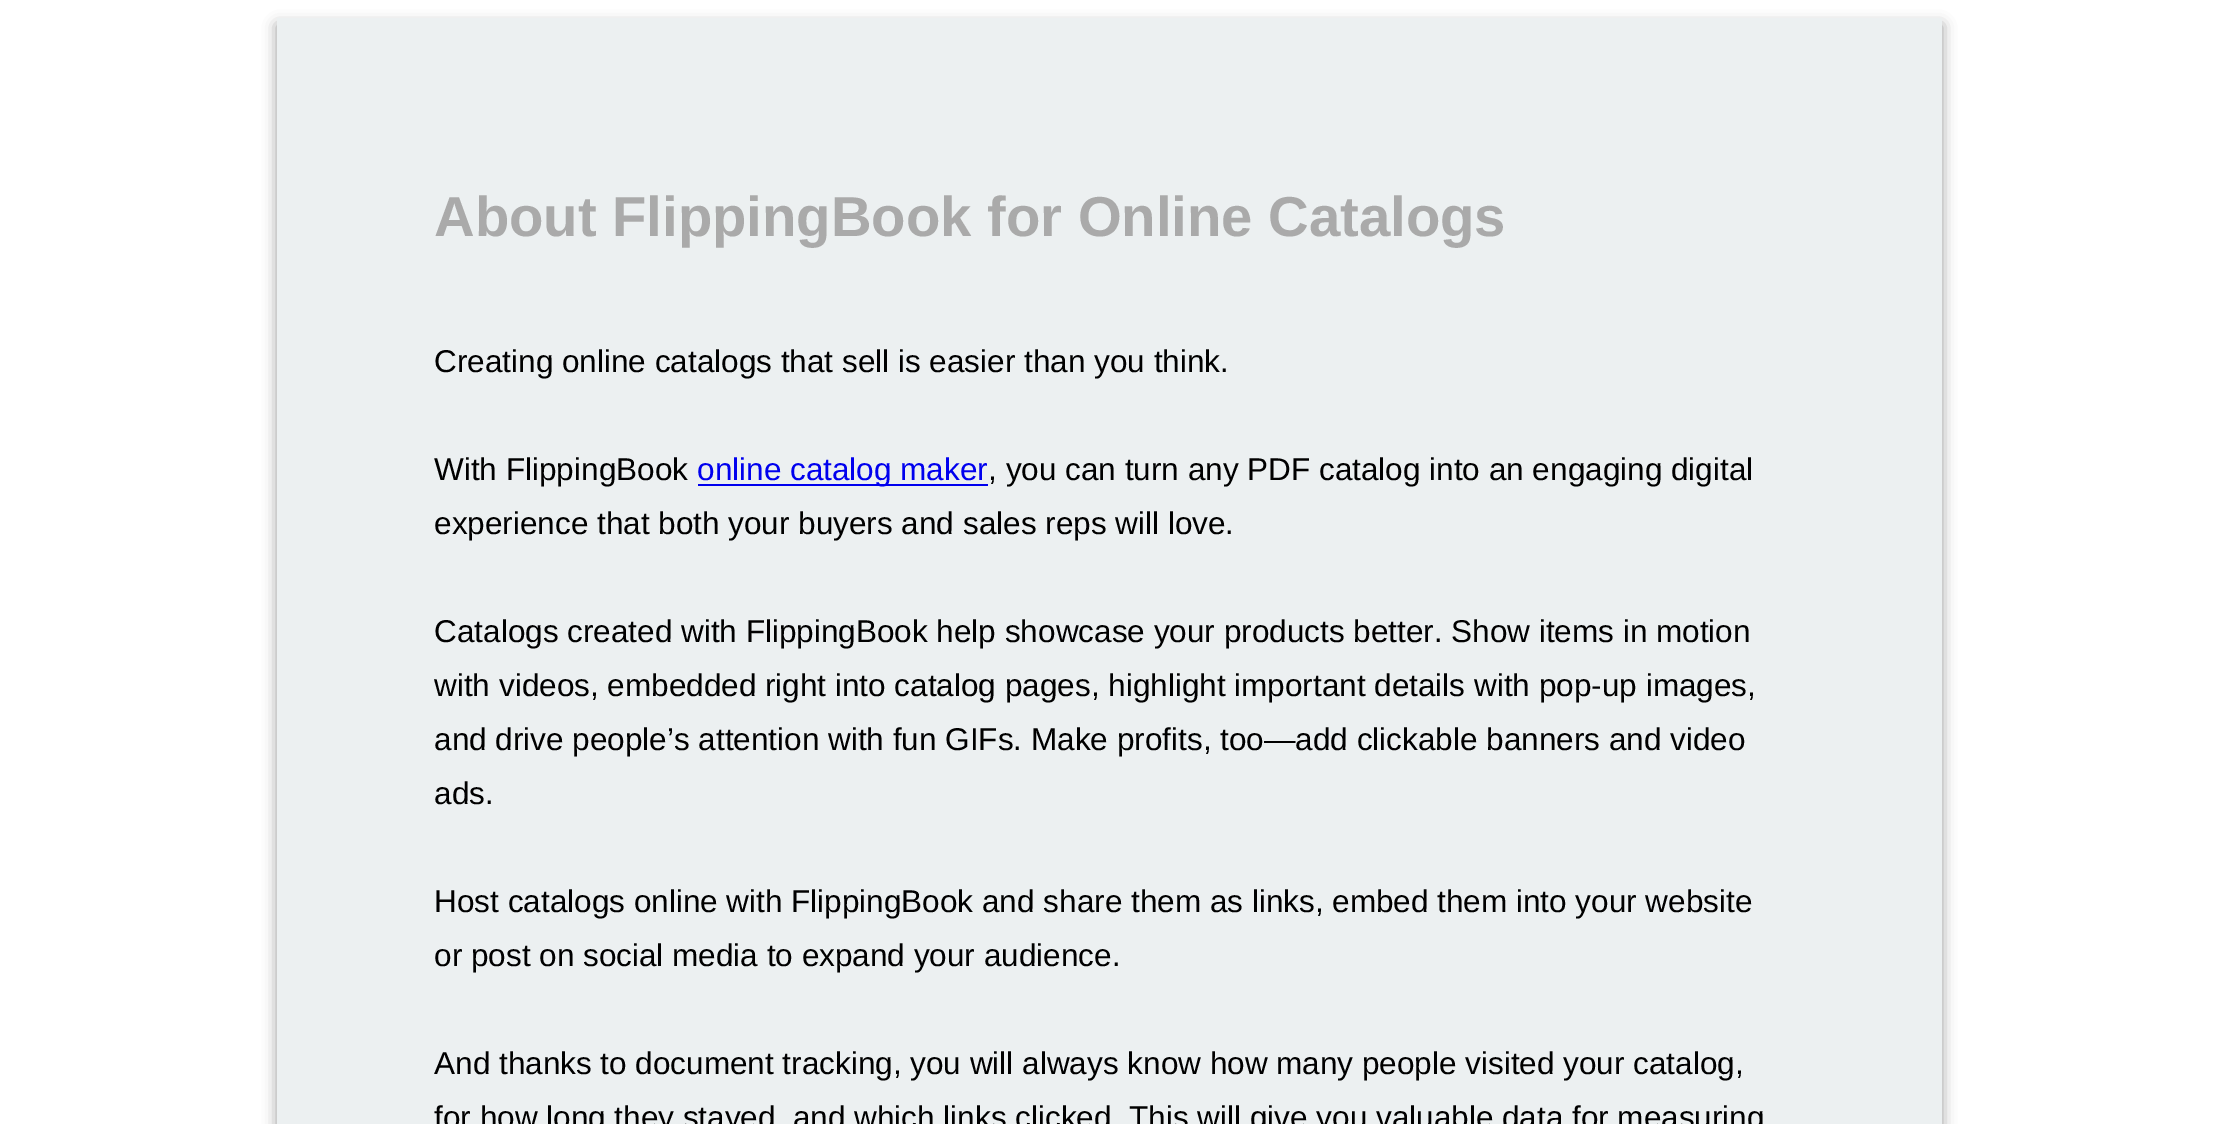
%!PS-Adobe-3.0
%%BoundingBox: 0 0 2218 1124
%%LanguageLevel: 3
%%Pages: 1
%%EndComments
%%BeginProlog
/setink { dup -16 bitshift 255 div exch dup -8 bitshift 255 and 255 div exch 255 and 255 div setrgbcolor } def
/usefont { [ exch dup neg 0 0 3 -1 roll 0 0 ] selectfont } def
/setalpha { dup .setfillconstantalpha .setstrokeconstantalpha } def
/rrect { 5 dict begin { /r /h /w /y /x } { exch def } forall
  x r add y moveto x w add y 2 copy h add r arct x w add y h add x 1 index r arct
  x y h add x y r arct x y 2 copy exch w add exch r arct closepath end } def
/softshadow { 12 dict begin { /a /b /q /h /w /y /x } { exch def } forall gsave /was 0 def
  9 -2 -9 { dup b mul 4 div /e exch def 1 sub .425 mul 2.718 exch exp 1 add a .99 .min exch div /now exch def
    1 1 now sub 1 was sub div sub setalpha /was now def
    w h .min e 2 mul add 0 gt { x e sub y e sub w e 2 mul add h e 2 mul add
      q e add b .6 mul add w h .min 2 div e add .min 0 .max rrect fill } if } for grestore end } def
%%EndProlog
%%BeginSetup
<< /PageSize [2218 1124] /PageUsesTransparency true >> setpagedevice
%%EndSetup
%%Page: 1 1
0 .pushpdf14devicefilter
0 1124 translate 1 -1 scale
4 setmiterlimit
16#FFFFFF setink
0 0 2218 1124 rectfill
16#000000 setink
277 25 1665 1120 0 7 0.4 softshadow
16#ECF0F1 setink
277 18 1665 1106 rectfill
/LiberationSans-Bold 56.25 usefont
16#AAAAAA setink
434 236 moveto (About FlippingBook for Online Catalogs) show
/LiberationSans-Regular 31.5 usefont
16#000000 setink
434 372 moveto (Creating online catalogs that sell is easier than you think.) show
434 480 moveto (With FlippingBook) show
16#0000EE setink
698 484 290 2 rectfill
697 480 moveto (online catalog maker) show
16#000000 setink
[
    [(, you can turn any PDF catalog into an engaging digital) 988 480]
    [(experience that both your buyers and sales reps will love.) 434 534]
    [(Catalogs created with FlippingBook help showcase your products better. Show items in motion) 434 642]
    [(with videos, embedded right into catalog pages, highlight important details with pop-up images,) 434 696]
    [(and drive people’s attention with fun GIFs. Make profits, too—add clickable banners and video) 434 750]
    [(ads.) 434 804]
    [(Host catalogs online with FlippingBook and share them as links, embed them into your website) 434 912]
    [(or post on social media to expand your audience.) 434 966]
    [(And thanks to document tracking, you will always know how many people visited your catalog,) 434 1074]
    [(for how long they stayed, and which links clicked. This will give you valuable data for measuring) 434 1128]
] { aload pop moveto show } forall
.poppdf14devicefilter showpage
%%EOF
